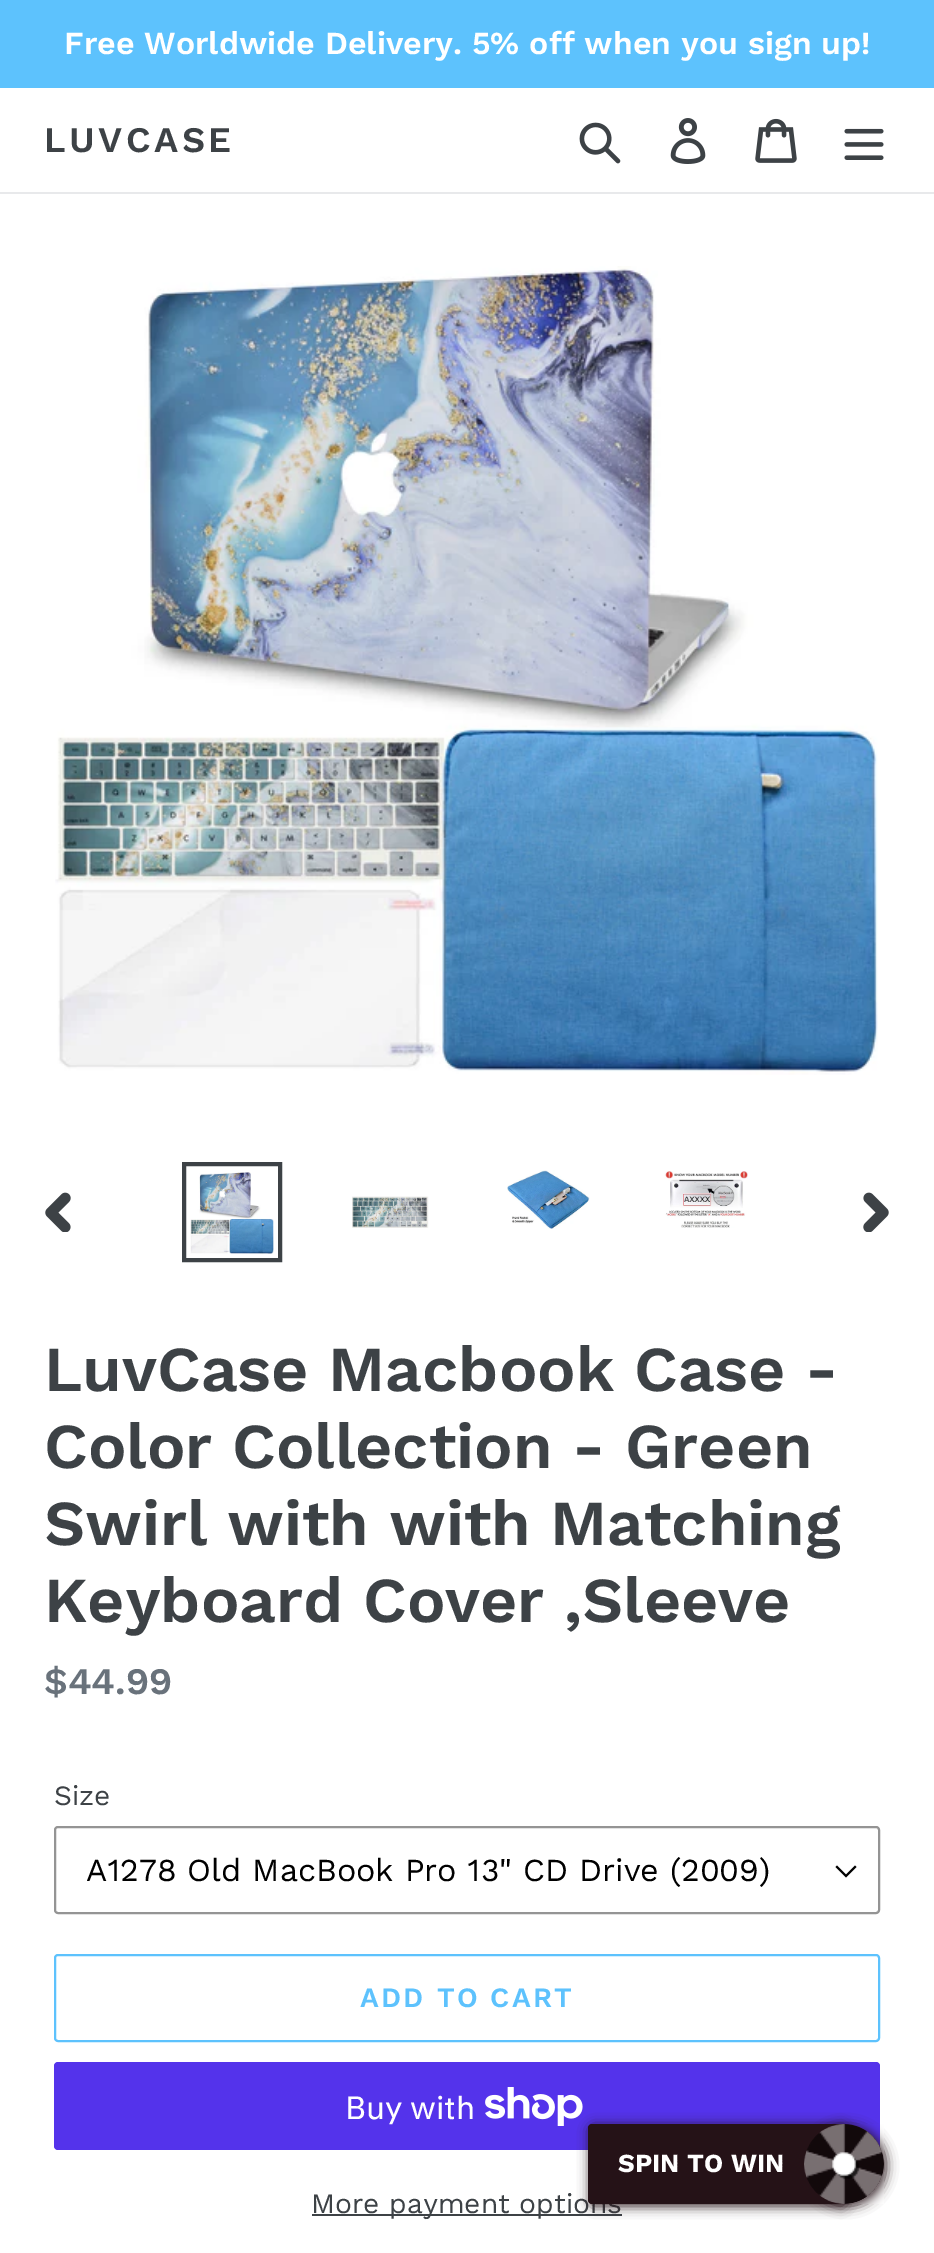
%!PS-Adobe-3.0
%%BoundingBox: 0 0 934 2253
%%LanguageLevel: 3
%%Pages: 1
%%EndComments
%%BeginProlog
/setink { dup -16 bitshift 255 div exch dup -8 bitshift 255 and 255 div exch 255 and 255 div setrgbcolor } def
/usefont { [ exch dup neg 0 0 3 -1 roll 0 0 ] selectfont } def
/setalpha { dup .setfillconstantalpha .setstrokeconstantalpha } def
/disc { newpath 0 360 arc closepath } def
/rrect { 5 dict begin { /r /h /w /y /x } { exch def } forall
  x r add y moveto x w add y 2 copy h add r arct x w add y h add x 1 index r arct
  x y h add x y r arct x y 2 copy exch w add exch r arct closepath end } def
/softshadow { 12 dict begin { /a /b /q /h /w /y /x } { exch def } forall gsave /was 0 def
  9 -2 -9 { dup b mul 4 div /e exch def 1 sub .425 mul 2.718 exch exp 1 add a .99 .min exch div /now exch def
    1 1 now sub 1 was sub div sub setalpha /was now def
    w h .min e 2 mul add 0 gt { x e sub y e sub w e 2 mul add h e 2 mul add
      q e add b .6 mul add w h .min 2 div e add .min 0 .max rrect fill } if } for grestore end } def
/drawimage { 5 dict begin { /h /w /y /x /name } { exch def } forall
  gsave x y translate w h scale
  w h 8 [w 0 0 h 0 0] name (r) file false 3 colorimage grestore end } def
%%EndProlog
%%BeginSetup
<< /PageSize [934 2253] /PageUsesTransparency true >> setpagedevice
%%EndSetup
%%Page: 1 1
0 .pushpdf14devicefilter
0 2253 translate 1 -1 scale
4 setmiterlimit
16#FFFFFF setink
0 0 934 2253 rectfill
16#5DC2FD setink
0 0 934 88 rectfill
/WorkSans-SemiBold 32 usefont
16#FFFFFF setink
64 54 moveto (Free Worldwide Delivery. 5% off when you sign up!) show
16#E8E9EB setink
0 192 934 2 rectfill
/WorkSans-SemiBold 36 usefont
16#3D4246 setink
44 152 moveto 3.5 0 (LUVCASE) ashow
(img1.raw) 579 122 42 42 drawimage
(img2.raw) 670 118 36 46 drawimage
(img3.raw) 755 118 42 45 drawimage
(img4.raw) 844 128 40 32 drawimage
(img5.raw) 55 266 823 809 drawimage
(img6.raw) 45 1192 26 40 drawimage
4 setlinewidth
184 1164 96 96 rectstroke
(img7.raw) 190 1172 84 82 drawimage
(img8.raw) 352 1196 77 32 drawimage
(img9.raw) 507 1170 83 59 drawimage
(img10.raw) 664 1171 84 57 drawimage
(img11.raw) 863 1192 26 40 drawimage
/WorkSans-SemiBold 64 usefont
[
    [(LuvCase Macbook Case -) 44 1391]
    [(Color Collection - Green) 44 1468]
    [(Swirl with with Matching) 44 1545]
    [(Keyboard Cover ,Sleeve) 44 1622]
] { aload pop moveto show } forall
/WorkSans-SemiBold 37.5 usefont
16#69727B setink
44 1694 moveto ($44.99) show
/WorkSans-Regular 28 usefont
16#3D4246 setink
54 1805 moveto (Size) show
16#000000 setink
846 1877.5 moveto 835.5 1867 lineto 837 1865.5 lineto 846 1874.5 lineto 855 1865.5 lineto 856.5 1867 lineto closepath fill
16#949494 setink
2 setlinewidth
55 1827 824 86 3 rrect stroke
/WorkSans-Regular 32 usefont
16#000000 setink
86 1881 moveto (A1278 Old MacBook Pro 13" CD Drive \(2009\)) show
16#5DC2FD setink
55 1955 824 86 3 rrect stroke
/WorkSans-SemiBold 28 usefont
360 2007 moveto 2.25 0 (ADD TO CART) ashow
16#5433EB setink
54 2062 826 88 4 rrect fill
/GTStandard-Regular 32 usefont
16#FFFFFF setink
345 2119 moveto (Buy with) show
(img12.raw) 485 2087 98 39 drawimage
16#3D4246 setink
312 2214 310 2 rectfill
/WorkSans-Regular 28 usefont
311 2213 moveto (More payment options) show
16#251217 setink
590 2126 256 80 4 6 1 softshadow
588 2124 256 80 4 rrect fill
/WorkSans-Bold 26 usefont
16#FFFFFF setink
618 2172 moveto (SPIN TO WIN) show
16#251217 setink
806 2126 80 80 40 6 1 softshadow
844 2164 40 disc fill
(img13.raw) 804 2124 80 80 drawimage
.poppdf14devicefilter showpage
%%EOF
